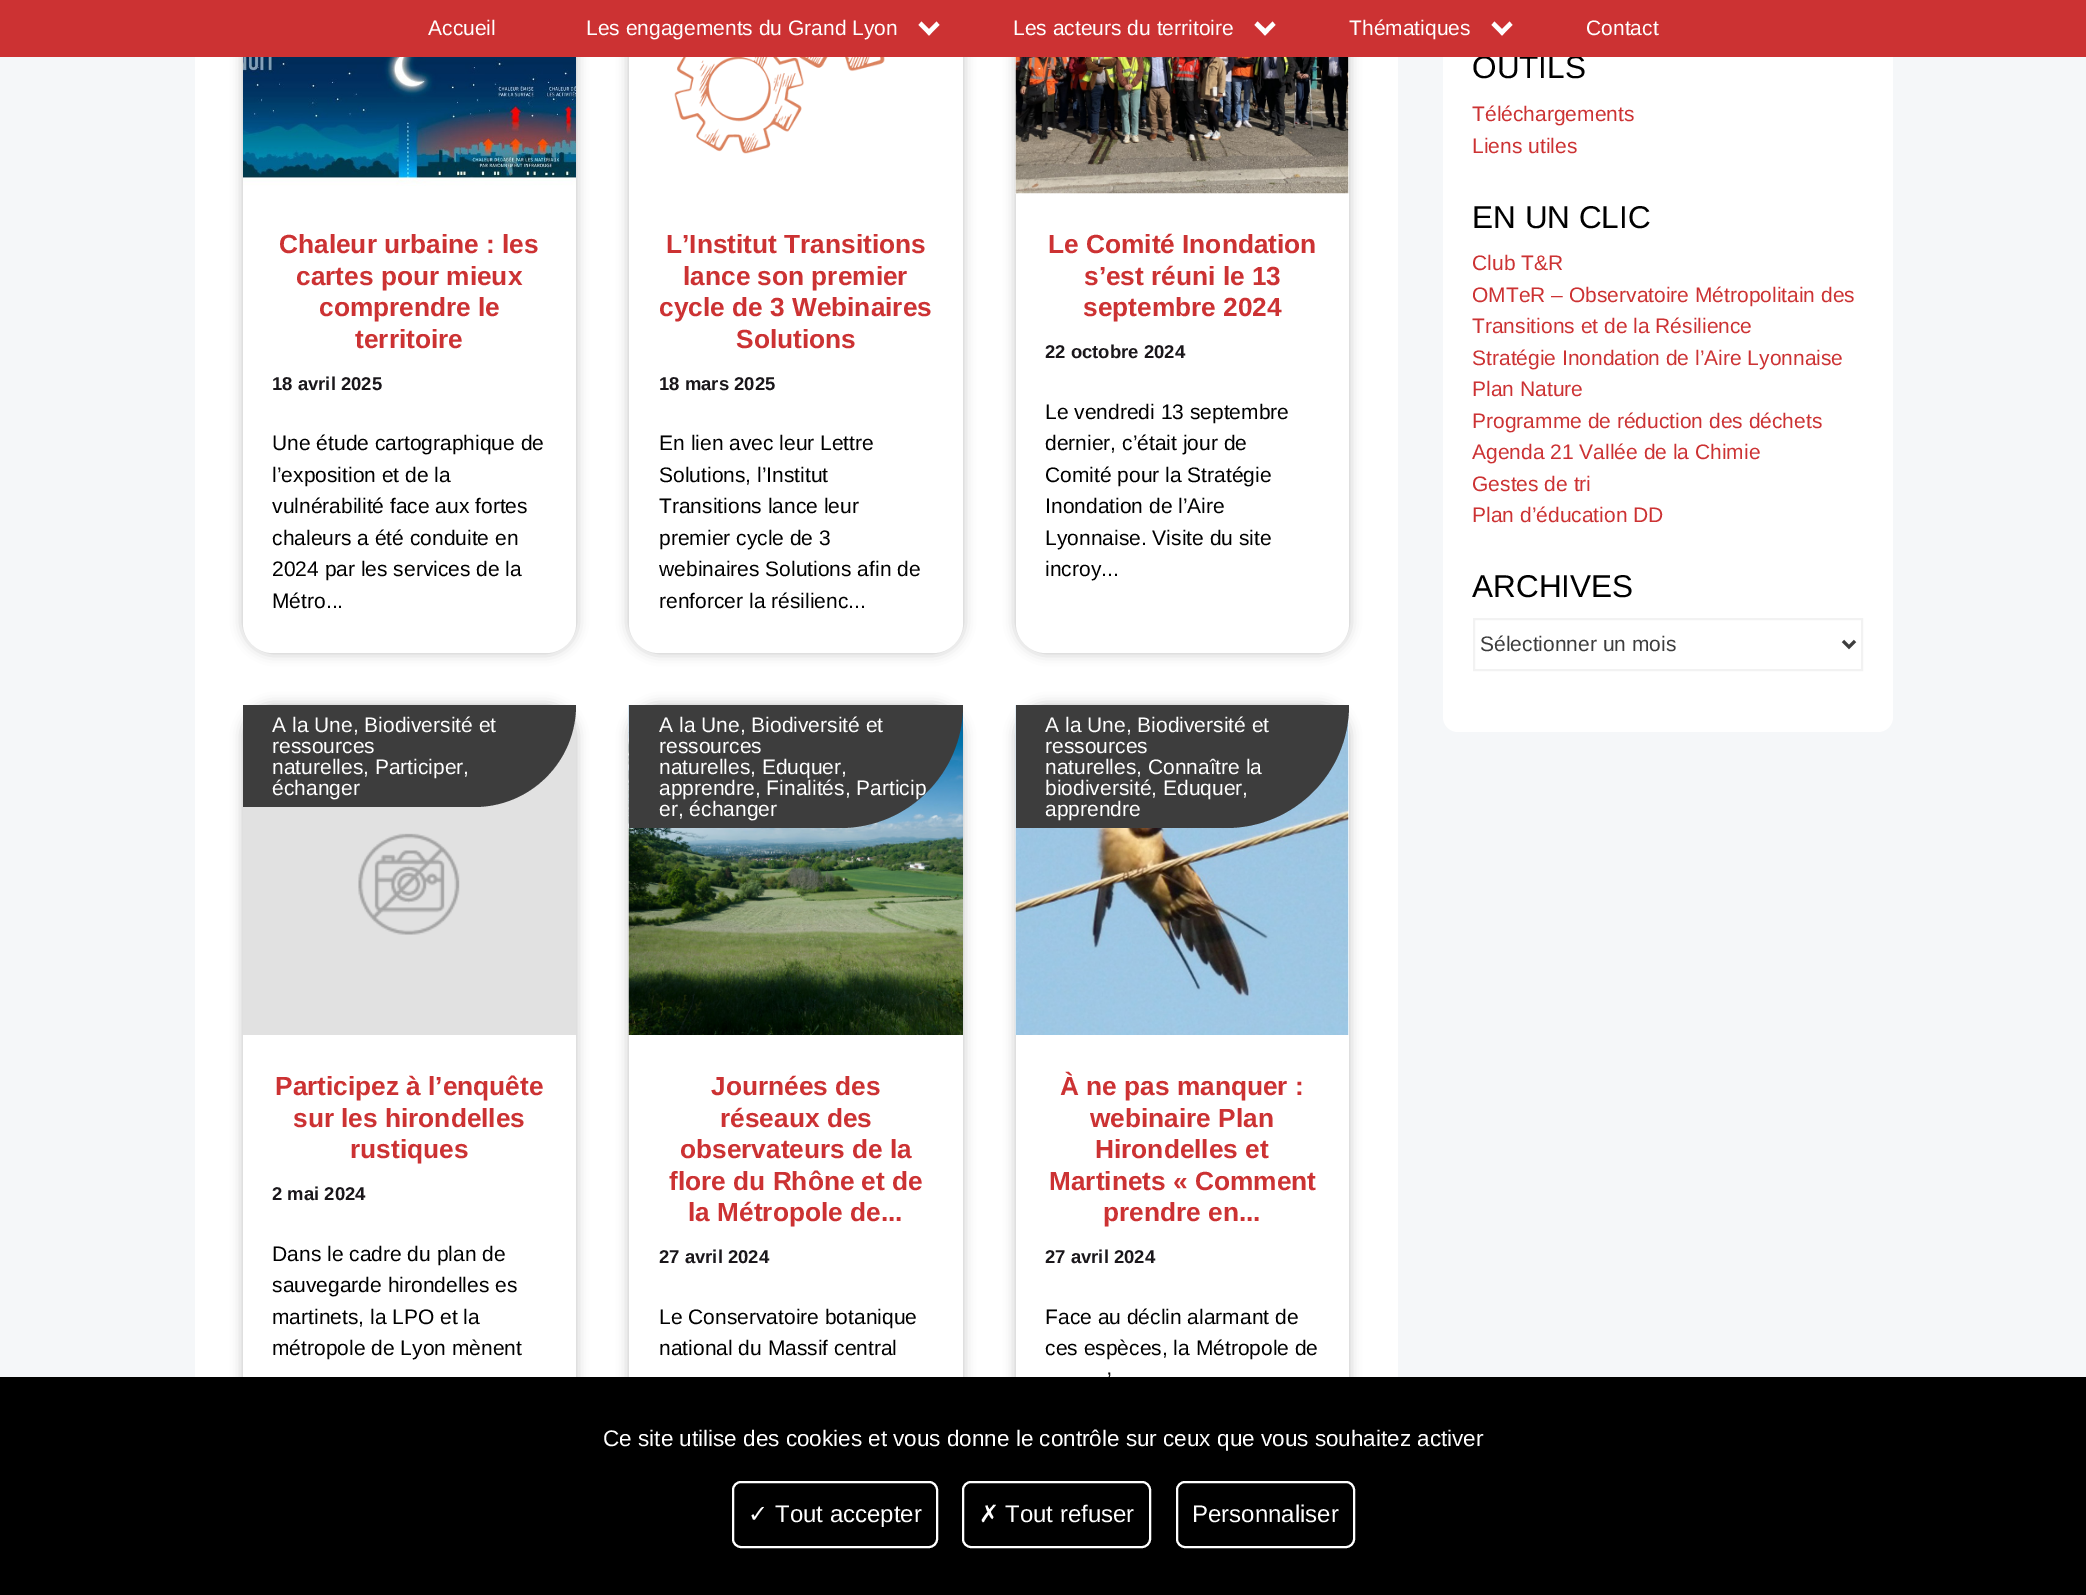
%!PS-Adobe-3.0
%%BoundingBox: 0 0 2086 1595
%%LanguageLevel: 3
%%Pages: 1
%%EndComments
%%BeginProlog
/setink { dup -16 bitshift 255 div exch dup -8 bitshift 255 and 255 div exch 255 and 255 div setrgbcolor } def
/usefont { [ exch dup neg 0 0 3 -1 roll 0 0 ] selectfont } def
/setalpha { dup .setfillconstantalpha .setstrokeconstantalpha } def
/rrect { 5 dict begin { /r /h /w /y /x } { exch def } forall
  x r add y moveto x w add y 2 copy h add r arct x w add y h add x 1 index r arct
  x y h add x y r arct x y 2 copy exch w add exch r arct closepath end } def
/softshadow { 12 dict begin { /a /b /q /h /w /y /x } { exch def } forall gsave /was 0 def
  9 -2 -9 { dup b mul 4 div /e exch def 1 sub .425 mul 2.718 exch exp 1 add a .99 .min exch div /now exch def
    1 1 now sub 1 was sub div sub setalpha /was now def
    w h .min e 2 mul add 0 gt { x e sub y e sub w e 2 mul add h e 2 mul add
      q e add b .6 mul add w h .min 2 div e add .min 0 .max rrect fill } if } for grestore end } def
/drawimage { 5 dict begin { /h /w /y /x /name } { exch def } forall
  gsave x y translate w h scale
  w h 8 [w 0 0 h 0 0] name (r) file false 3 colorimage grestore end } def
%%EndProlog
%%BeginSetup
<< /PageSize [2086 1595] /PageUsesTransparency true >> setpagedevice
%%EndSetup
%%Page: 1 1
0 .pushpdf14devicefilter
0 1595 translate 1 -1 scale
4 setmiterlimit
16#F5F7F9 setink
0 0 2086 1595 rectfill
16#FFFFFF setink
195 57 1203 1320 rectfill
16#BDBDBD setink
243 -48 333 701 30 6 1 softshadow
16#FFFFFF setink
243 -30 moveto 576 -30 lineto 576 623 lineto 576 639.5 562.5 653 546 653 curveto 273 653 lineto 256.5 653 243 639.5 243 623 curveto closepath fill
16#BDBDBD setink
629 -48 334 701 30 6 1 softshadow
16#FFFFFF setink
629 -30 moveto 963 -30 lineto 963 623 lineto 963 639.5 949.5 653 933 653 curveto 659 653 lineto 642.5 653 629 639.5 629 623 curveto closepath fill
16#BDBDBD setink
1016 -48 333 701 30 6 1 softshadow
16#FFFFFF setink
1016 -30 moveto 1349 -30 lineto 1349 623 lineto 1349 639.5 1335.5 653 1319 653 curveto 1046 653 lineto 1029.5 653 1016 639.5 1016 623 curveto closepath fill
1443 -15 450 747 15 rrect fill
/LiberationSans-Regular 31.5 usefont
16#000000 setink
1472 78 moveto (OUTILS) show
16#CC3233 setink
0 0 2086 57 rectfill
/LiberationSans-Regular 21 usefont
16#FFFFFF setink
428 35 moveto (Accueil) show
586 35 moveto (Les engagements du Grand Lyon) show
926 32 moveto 936.5 21.5 lineto 939.5 25 lineto 929 35.5 lineto closepath fill
918.5 25 moveto 921.5 21.5 lineto 932 32 lineto 929 35.5 lineto closepath fill
1013 35 moveto (Les acteurs du territoire) show
1262 32 moveto 1272.5 21.5 lineto 1275.5 25 lineto 1265 35.5 lineto closepath fill
1254.5 25 moveto 1257.5 21.5 lineto 1268.5 32 lineto 1265 35.5 lineto closepath fill
1349 35 moveto (Thématiques) show
1499 32 moveto 1509.5 21.5 lineto 1512.5 25 lineto 1502 35.5 lineto closepath fill
1491.5 25 moveto 1494.5 21.5 lineto 1505 32 lineto 1502 35.5 lineto closepath fill
1586 35 moveto (Contact) show
(img1.raw) 243 57 333 129 drawimage
/LiberationSans-Bold 26.25 usefont
16#CC3233 setink
[
    [(Chaleur urbaine : les) 279 253]
    [(cartes pour mieux) 296 285]
    [(comprendre le) 319 316]
    [(territoire) 355 348]
] { aload pop moveto show } forall
/LiberationSans-Bold 18.5 usefont
16#1A171B setink
272 390 moveto (18 avril 2025) show
/LiberationSans-Regular 21 usefont
16#000000 setink
[
    [(Une étude cartographique de) 272 450]
    [(l’exposition et de la) 272 482]
    [(vulnérabilité face aux fortes) 272 513]
    [(chaleurs a été conduite en) 272 545]
    [(2024 par les services de la) 272 576]
    [(Métro...) 272 608]
] { aload pop moveto show } forall
(img2.raw) 674 57 211 97 drawimage
/LiberationSans-Bold 26.25 usefont
16#CC3233 setink
[
    [(L’Institut Transitions) 666 253]
    [(lance son premier) 683 285]
    [(cycle de 3 Webinaires) 659 316]
    [(Solutions) 736 348]
] { aload pop moveto show } forall
/LiberationSans-Bold 18.5 usefont
16#1A171B setink
659 390 moveto (18 mars 2025) show
/LiberationSans-Regular 21 usefont
16#000000 setink
[
    [(En lien avec leur Lettre) 659 450]
    [(Solutions, l’Institut) 659 482]
    [(Transitions lance leur) 659 513]
    [(premier cycle de 3) 659 545]
    [(webinaires Solutions afin de) 659 576]
    [(renforcer la résilienc...) 659 608]
] { aload pop moveto show } forall
(img3.raw) 1015 57 334 137 drawimage
/LiberationSans-Bold 26.25 usefont
16#CC3233 setink
[
    [(Le Comité Inondation) 1048 253]
    [(s’est réuni le 13) 1084 285]
    [(septembre 2024) 1083 316]
] { aload pop moveto show } forall
/LiberationSans-Bold 18.5 usefont
16#1A171B setink
1045 358 moveto (22 octobre 2024) show
/LiberationSans-Regular 21 usefont
16#000000 setink
[
    [(Le vendredi 13 septembre) 1045 419]
    [(dernier, c’était jour de) 1045 450]
    [(Comité pour la Stratégie) 1045 482]
    [(Inondation de l’Aire) 1045 513]
    [(Lyonnaise. Visite du site) 1045 545]
    [(incroy...) 1045 576]
] { aload pop moveto show } forall
16#BDBDBD setink
243 705 333 822 30 6 1 softshadow
16#FFFFFF setink
243 1035 333 342 rectfill
(img4.raw) 243 705 333 330 drawimage
16#3D3D3D setink
243 705 moveto 576 705 lineto 576 761.5 530.5 807 474 807 curveto 243 807 lineto closepath fill
16#FFFFFF setink
[
    [(A la Une, Biodiversité et) 272 732]
    [(ressources) 272 753]
    [(naturelles, Participer,) 272 774]
    [(échanger) 272 795]
] { aload pop moveto show } forall
/LiberationSans-Bold 26.25 usefont
16#CC3233 setink
[
    [(Participez à l’enquête) 275 1095]
    [(sur les hirondelles) 293 1127]
    [(rustiques) 350 1158]
] { aload pop moveto show } forall
/LiberationSans-Bold 18.5 usefont
16#1A171B setink
272 1200 moveto (2 mai 2024) show
/LiberationSans-Regular 21 usefont
16#000000 setink
[
    [(Dans le cadre du plan de) 272 1261]
    [(sauvegarde hirondelles es) 272 1292]
    [(martinets, la LPO et la) 272 1324]
    [(métropole de Lyon mènent) 272 1355]
] { aload pop moveto show } forall
16#BDBDBD setink
629 705 334 822 30 6 1 softshadow
16#FFFFFF setink
629 1035 334 342 rectfill
(img5.raw) 628 705 335 330 drawimage
16#3D3D3D setink
629 705 moveto 963 705 lineto 963 773 908 828 840 828 curveto 629 828 lineto closepath fill
16#FFFFFF setink
[
    [(A la Une, Biodiversité et) 659 732]
    [(ressources) 659 753]
    [(naturelles, Eduquer,) 659 774]
    [(apprendre, Finalités, Particip) 659 795]
    [(er, échanger) 659 816]
] { aload pop moveto show } forall
/LiberationSans-Bold 26.25 usefont
16#CC3233 setink
[
    [(Journées des) 711 1095]
    [(réseaux des) 720 1127]
    [(observateurs de la) 680 1158]
    [(flore du Rhône et de) 669 1190]
    [(la Métropole de...) 688 1221]
] { aload pop moveto show } forall
/LiberationSans-Bold 18.5 usefont
16#1A171B setink
659 1263 moveto (27 avril 2024) show
/LiberationSans-Regular 21 usefont
16#000000 setink
659 1324 moveto (Le Conservatoire botanique) show
659 1355 moveto (national du Massif central) show
16#BDBDBD setink
1016 705 333 822 30 6 1 softshadow
16#FFFFFF setink
1016 705 333 672 rectfill
(img6.raw) 1015 705 334 330 drawimage
16#3D3D3D setink
1016 705 moveto 1349 705 lineto 1349 773 1294 828 1226 828 curveto 1016 828 lineto closepath fill
16#FFFFFF setink
[
    [(A la Une, Biodiversité et) 1045 732]
    [(ressources) 1045 753]
    [(naturelles, Connaître la) 1045 774]
    [(biodiversité, Eduquer,) 1045 795]
    [(apprendre) 1045 816]
] { aload pop moveto show } forall
/LiberationSans-Bold 26.25 usefont
16#CC3233 setink
[
    [(À ne pas manquer :) 1060 1095]
    [(webinaire Plan) 1090 1127]
    [(Hirondelles et) 1095 1158]
    [(Martinets « Comment) 1049 1190]
    [(prendre en...) 1103 1221]
] { aload pop moveto show } forall
/LiberationSans-Bold 18.5 usefont
16#1A171B setink
1045 1263 moveto (27 avril 2024) show
/LiberationSans-Regular 21 usefont
16#000000 setink
[
    [(Face au déclin alarmant de) 1045 1324]
    [(ces espèces, la Métropole de) 1045 1355]
    [(’) 1107 1387]
] { aload pop moveto show } forall
16#CC3233 setink
1472 121 moveto (Téléchargements) show
1472 153 moveto (Liens utiles) show
/LiberationSans-Regular 31.5 usefont
16#000000 setink
1472 228 moveto (EN UN CLIC) show
/LiberationSans-Regular 21 usefont
16#CC3233 setink
[
    [(Club T&R) 1472 270]
    [(OMTeR – Observatoire Métropolitain des) 1472 302]
    [(Transitions et de la Résilience) 1472 333]
    [(Stratégie Inondation de l’Aire Lyonnaise) 1472 365]
    [(Plan Nature) 1472 396]
    [(Programme de réduction des déchets) 1472 428]
    [(Agenda 21 Vallée de la Chimie) 1472 459]
    [(Gestes de tri) 1472 491]
    [(Plan d’éducation DD) 1472 522]
] { aload pop moveto show } forall
/LiberationSans-Regular 31.5 usefont
16#000000 setink
1472 597 moveto (ARCHIVES) show
16#F2F2F2 setink
2 setlinewidth
1474 619 388 51 rectstroke
16#3D3D3D setink
3 setlinewidth
1843 641 moveto 1849 647 lineto 1855 641 lineto stroke
/LiberationSans-Regular 21 usefont
1480 651 moveto (Sélectionner un mois) show
16#000000 setink
0 1377 2086 218 rectfill
/LiberationSans-Regular 22.5 usefont
16#FFFFFF setink
603 1446 moveto (Ce site utilise des cookies et vous donne le contrôle sur ceux que vous souhaitez activer) show
2 setlinewidth
733 1482 204 65 8 rrect stroke
/DejaVuSans-Regular 24 usefont
748 1522 moveto (✓) show
/LiberationSans-Regular 24 usefont
775 1522 moveto (Tout accepter) show
963 1482 187 65 8 rrect stroke
/DejaVuSans-Regular 24 usefont
979 1522 moveto (✗) show
/LiberationSans-Regular 24 usefont
1005 1522 moveto (Tout refuser) show
1177 1482 177 65 8 rrect stroke
1192 1522 moveto (Personnaliser) show
.poppdf14devicefilter showpage
%%EOF
